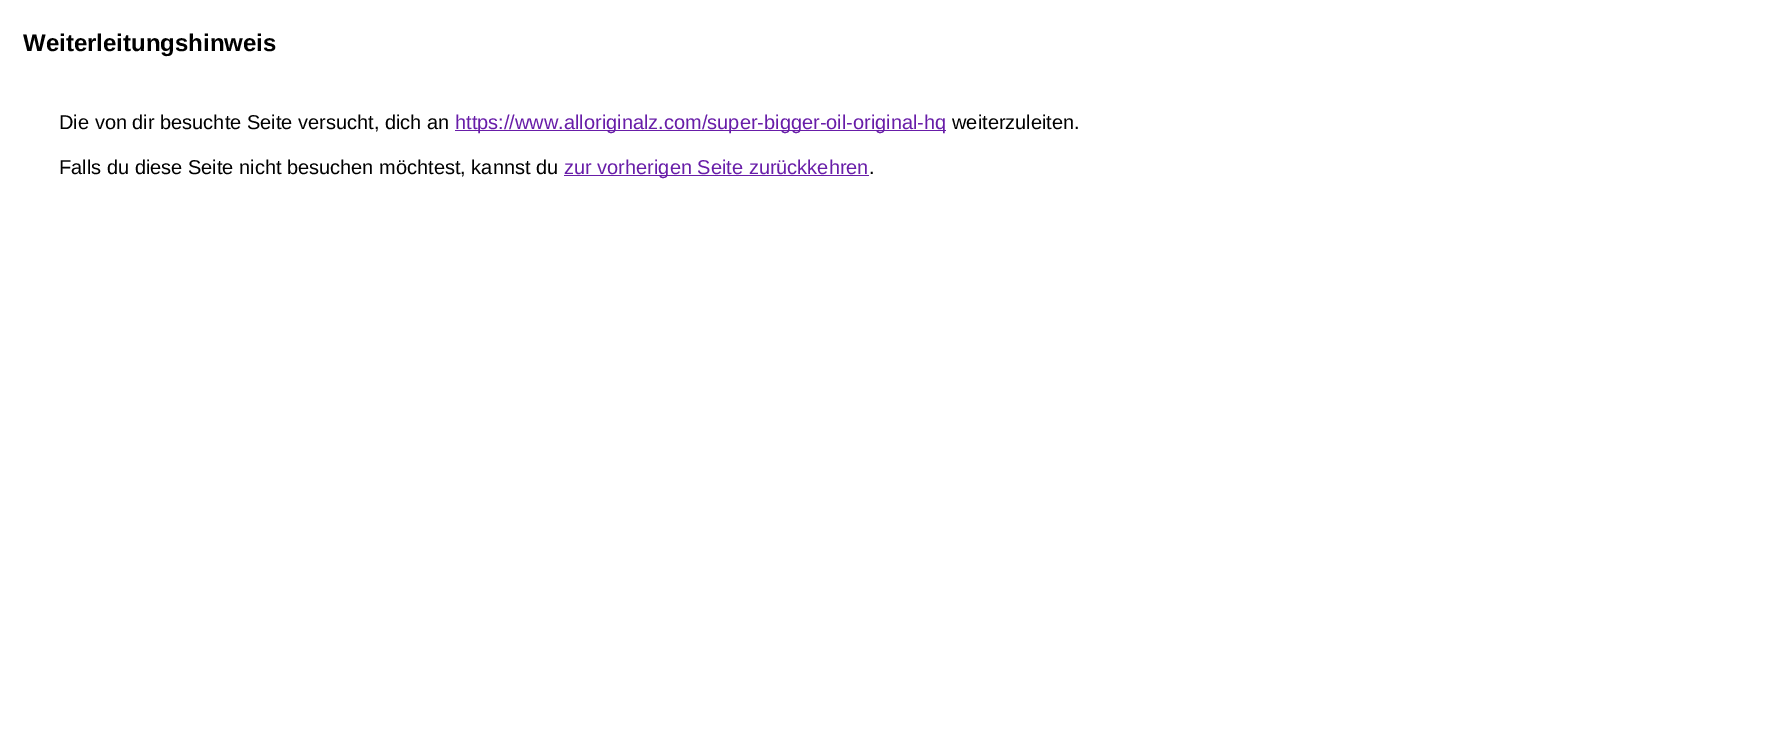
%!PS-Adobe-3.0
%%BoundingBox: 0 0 1766 754
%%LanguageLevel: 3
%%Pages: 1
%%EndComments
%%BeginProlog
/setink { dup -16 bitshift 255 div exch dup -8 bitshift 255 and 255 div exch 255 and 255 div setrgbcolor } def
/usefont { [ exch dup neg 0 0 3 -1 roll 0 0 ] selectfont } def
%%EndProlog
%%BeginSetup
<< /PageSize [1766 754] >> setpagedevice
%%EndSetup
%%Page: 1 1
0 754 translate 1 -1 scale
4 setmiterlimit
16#FFFFFF setink
0 0 1766 754 rectfill
/LiberationSans-Bold 24 usefont
16#000000 setink
23 51 moveto (Weiterleitungshinweis) show
/LiberationSans-Regular 20 usefont
59 129 moveto (Die von dir besuchte Seite versucht, dich an) show
16#681DA8 setink
455 130 491 1 rectfill
455 129 moveto (https://www.alloriginalz.com/super-bigger-oil-original-hq) show
16#000000 setink
952 129 moveto (weiterzuleiten.) show
59 174 moveto (Falls du diese Seite nicht besuchen möchtest, kannst du) show
16#681DA8 setink
564 175 305 1 rectfill
564 174 moveto (zur vorherigen Seite zurückkehren) show
16#000000 setink
869 174 moveto (.) show
showpage
%%EOF
